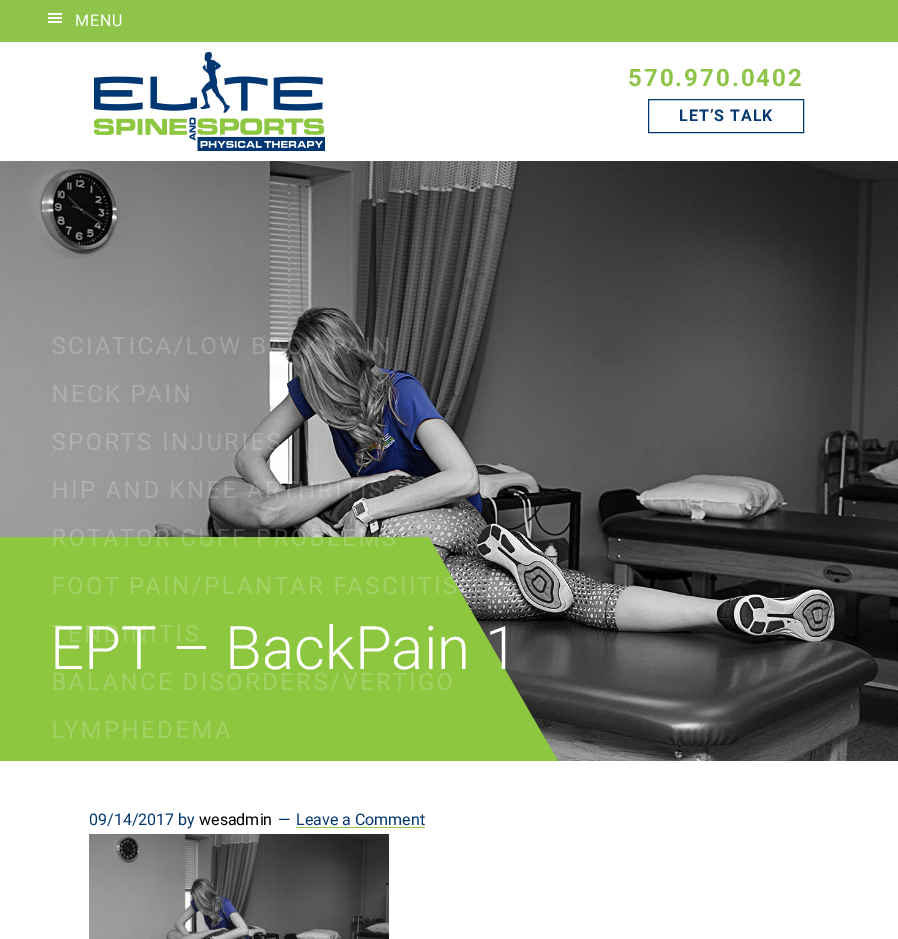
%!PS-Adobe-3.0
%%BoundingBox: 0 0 898 939
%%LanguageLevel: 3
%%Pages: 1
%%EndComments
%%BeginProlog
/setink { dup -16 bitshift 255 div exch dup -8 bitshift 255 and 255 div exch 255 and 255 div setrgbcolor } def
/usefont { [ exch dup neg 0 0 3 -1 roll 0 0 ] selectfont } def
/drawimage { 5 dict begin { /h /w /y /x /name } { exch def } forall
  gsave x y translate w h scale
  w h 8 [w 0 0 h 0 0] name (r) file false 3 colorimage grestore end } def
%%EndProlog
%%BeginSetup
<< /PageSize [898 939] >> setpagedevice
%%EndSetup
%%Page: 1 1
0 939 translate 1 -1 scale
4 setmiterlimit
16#FFFFFF setink
0 0 898 939 rectfill
16#8EC449 setink
0 0 898 42 rectfill
(img1.raw) 48 13 14 10 drawimage
/Roboto-Regular 16 usefont
16#FFFFFF setink
75 26 moveto 1 0 (MENU) ashow
(img2.raw) 94 52 231 99 drawimage
/Roboto-Bold 24 usefont
16#8EC449 setink
628 86 moveto 2 0 (570.970.0402) ashow
16#05386F setink
648.5 99.5 155 33 rectstroke
/Roboto-Bold 16 usefont
679 121 moveto 1 0 (LET’S TALK) ashow
(img3.raw) 0 161 898 600 drawimage
(img4.raw) 0 336 558 425 drawimage
/Roboto-Light 60 usefont
16#FFFFFF setink
50 669 moveto (EPT – BackPain 1) show
/Roboto-Regular 16 usefont
16#05386F setink
89 825 moveto (09/14/2017 by) show
16#000000 setink
199 825 moveto (wesadmin) show
16#05386F setink
278 825 moveto (—) show
16#8EC449 setink
296 827 129 1 rectfill
16#05386F setink
296 825 moveto (Leave a Comment) show
(img5.raw) 89 834 300 105 drawimage
showpage
%%EOF
